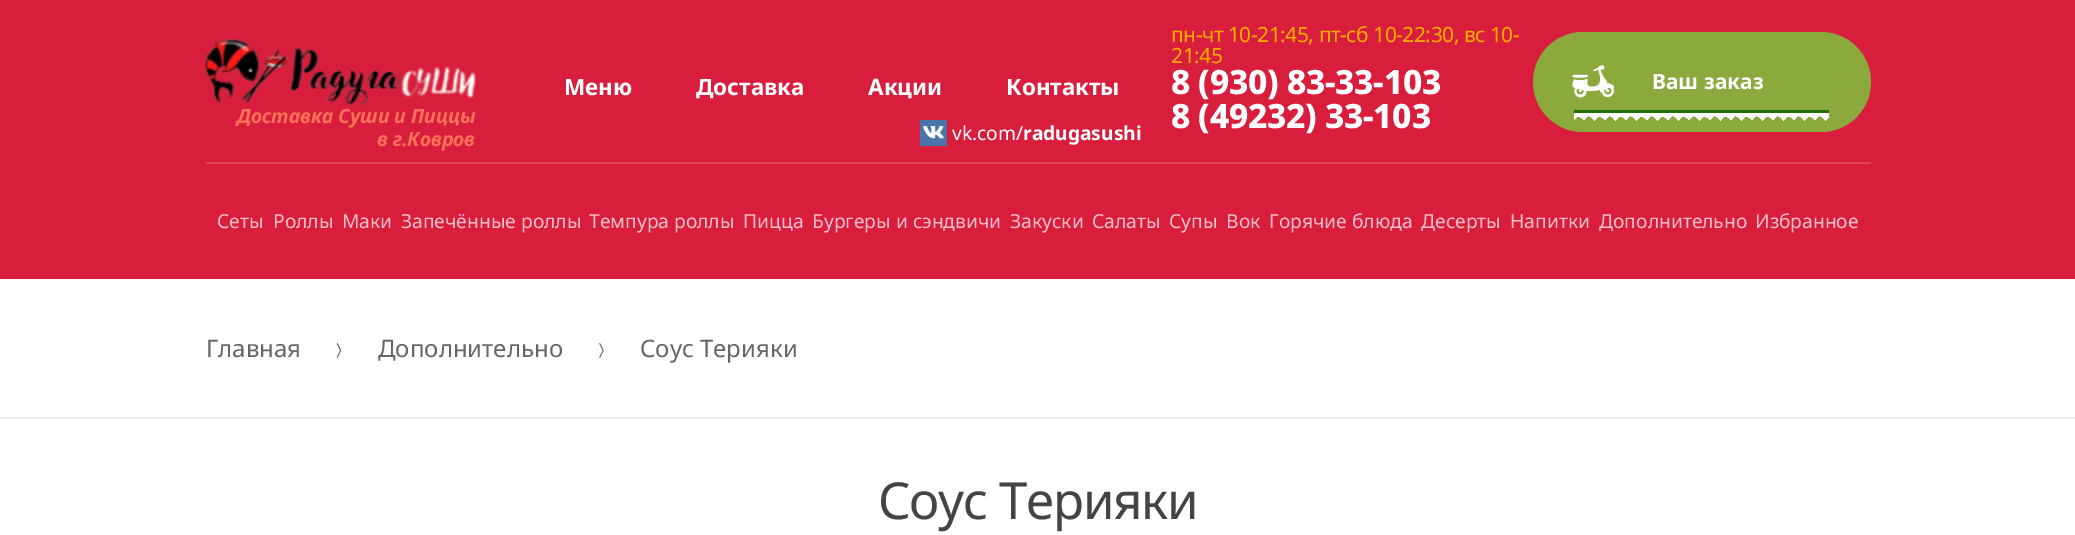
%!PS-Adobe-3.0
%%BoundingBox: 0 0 2075 535
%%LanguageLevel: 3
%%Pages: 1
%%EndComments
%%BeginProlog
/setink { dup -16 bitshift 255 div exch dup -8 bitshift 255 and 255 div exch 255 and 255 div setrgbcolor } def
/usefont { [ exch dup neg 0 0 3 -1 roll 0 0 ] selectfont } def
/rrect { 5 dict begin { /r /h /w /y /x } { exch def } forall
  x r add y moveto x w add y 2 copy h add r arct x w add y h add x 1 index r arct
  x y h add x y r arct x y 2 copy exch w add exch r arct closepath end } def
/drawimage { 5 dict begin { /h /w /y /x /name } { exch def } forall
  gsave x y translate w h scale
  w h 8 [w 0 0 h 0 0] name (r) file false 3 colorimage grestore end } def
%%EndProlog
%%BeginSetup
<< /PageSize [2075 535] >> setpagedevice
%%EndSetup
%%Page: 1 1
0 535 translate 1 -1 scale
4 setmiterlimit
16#FFFFFF setink
0 0 2075 535 rectfill
16#D81E3C setink
0 0 2075 279 rectfill
/NotoSans-Bold 22.5 usefont
16#FFFFFF setink
[
    [(Меню) 564 95]
    [(Доставка) 696 95]
    [(Акции) 868 95]
    [(Контакты) 1006 95]
] { aload pop moveto show } forall
(img1.raw) 205 39 271 66 drawimage
/NotoSans-BoldItalic 19.5 usefont
16#FF7059 setink
237 123 moveto (Доставка Суши и Пиццы) show
377 146 moveto (в г.Ковров) show
16#4A75A8 setink
920 120 27 26 rectfill
(img2.raw) 923 126 21 13 drawimage
/NotoSans-Regular 19.25 usefont
16#FFFFFF setink
952 140 moveto (vk.com/) show
/NotoSans-Bold 19.25 usefont
1023 140 moveto (radugasushi) show
/NotoSans-Regular 21 usefont
16#FFAE00 setink
1171 42 moveto -0.5 0 (пн-чт 10-21:45, пт-сб 10-22:30, вс 10-) ashow
1171 63 moveto -0.5 0 (21:45) ashow
/NotoSans-ExtraBold 33.5 usefont
16#FFFFFF setink
1171 94 moveto -0.3 0 (8 \(930\) 83-33-103) ashow
1171 128 moveto -0.3 0 (8 \(49232\) 33-103) ashow
16#8CA93E setink
1533 32 338 100 50 rrect fill
(img3.raw) 1572 65 43 33 drawimage
/NotoSans-Bold 21 usefont
16#FFFFFF setink
1652 89 moveto (Ваш заказ) show
16#226F0B setink
1574 110 255 3 rectfill
16#FFFFFF setink
1574 113 255 1 rectfill
(img4.raw) 1574 114 255 6 drawimage
(img5.raw) 1579 114 247 7 drawimage
(img6.raw) 1578 116 243 2 drawimage
16#DF445D setink
206 162 1665 2 rectfill
/NotoSans-Regular 19.25 usefont
16#FFC0CA setink
[
    [(Сеты) 217 228]
    [(Роллы) 273 228]
    [(Маки) 342 228]
    [(Запечённые роллы) 401 228]
    [(Темпура роллы) 589 228]
    [(Пицца) 743 228]
    [(Бургеры и сэндвичи) 812 228]
    [(Закуски) 1010 228]
    [(Салаты) 1092 228]
    [(Супы) 1169 228]
    [(Вок) 1226 228]
    [(Горячие блюда) 1269 228]
    [(Десерты) 1421 228]
    [(Напитки) 1510 228]
    [(Дополнительно) 1599 228]
    [(Избранное) 1755 228]
] { aload pop moveto show } forall
16#E9E9E9 setink
0 417 2075 2 rectfill
/NotoSans-Regular 24 usefont
16#666666 setink
206 357 moveto (Главная) show
(img7.raw) 336 343 6 15 drawimage
378 357 moveto (Дополнительно) show
(img8.raw) 599 343 5 15 drawimage
640 357 moveto (Соус Терияки) show
/NotoSans-Regular 51 usefont
16#454345 setink
878 519 moveto -1.25 0 (Соус Терияки) ashow
showpage
%%EOF
